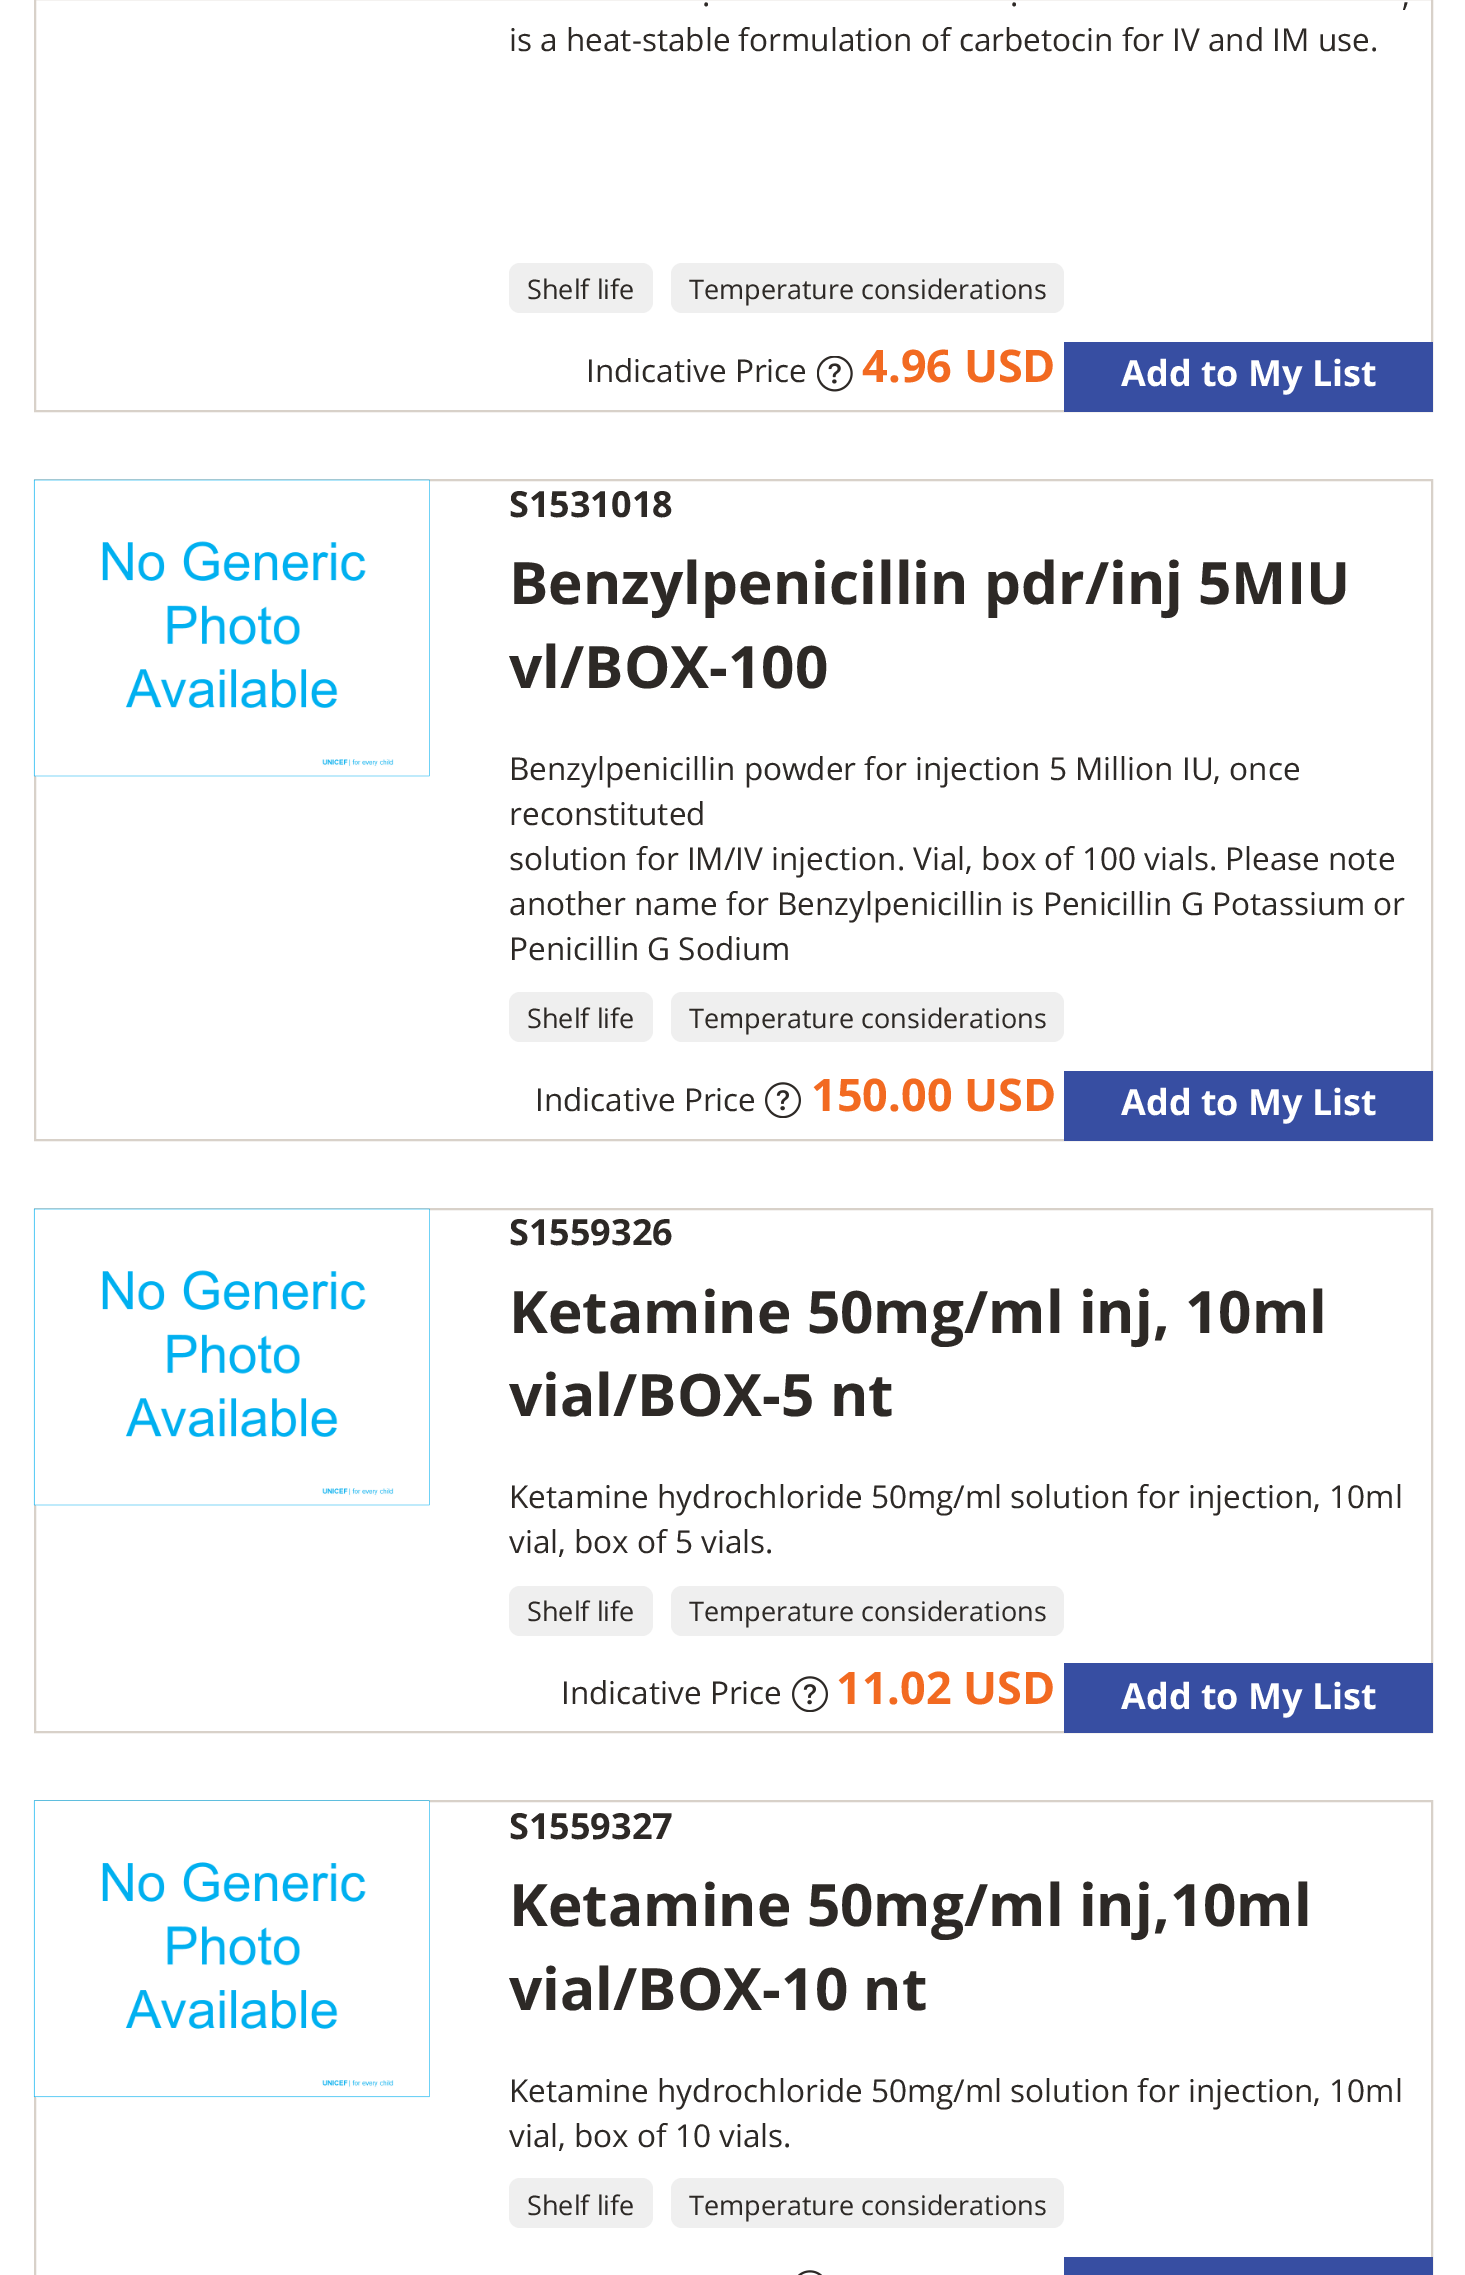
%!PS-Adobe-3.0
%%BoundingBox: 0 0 1465 2275
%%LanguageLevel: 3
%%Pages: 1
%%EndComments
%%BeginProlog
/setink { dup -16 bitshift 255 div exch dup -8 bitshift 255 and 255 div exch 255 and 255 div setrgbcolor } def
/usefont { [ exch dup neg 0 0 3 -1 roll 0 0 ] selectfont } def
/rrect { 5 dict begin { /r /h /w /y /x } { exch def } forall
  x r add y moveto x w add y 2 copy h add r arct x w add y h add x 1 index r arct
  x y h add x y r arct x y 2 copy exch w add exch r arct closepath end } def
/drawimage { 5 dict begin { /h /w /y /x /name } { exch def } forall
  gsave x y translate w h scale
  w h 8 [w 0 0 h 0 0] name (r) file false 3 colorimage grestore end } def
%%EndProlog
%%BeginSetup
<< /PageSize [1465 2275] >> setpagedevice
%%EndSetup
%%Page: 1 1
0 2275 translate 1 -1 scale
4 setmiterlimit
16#FFFFFF setink
0 0 1465 2275 rectfill
16#D8D1C9 setink
2 setlinewidth
35 -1 1397 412 rectstroke
/OpenSans-Regular 31.5 usefont
16#2D2926 setink
[
    [(.) 702 6]
    [(.) 1010 6]
    [(,) 1402 6]
    [(is a heat-stable formulation of carbetocin for IV and IM use.) 509 51]
] { aload pop moveto show } forall
16#EFEFEF setink
509 263 144 50 11 rrect fill
/OpenSans-Regular 27 usefont
16#2D2926 setink
527 299 moveto (Shelf life) show
16#EFEFEF setink
671 263 393 50 11 rrect fill
16#2D2926 setink
689 299 moveto (Temperature considerations) show
/OpenSans-Regular 31.5 usefont
586 382 moveto (Indicative Price) show
(img1.raw) 817 356 36 36 drawimage
/OpenSans-Bold 45 usefont
16#F26A21 setink
862 382 moveto (4.96 USD) show
16#374EA2 setink
1064 342 369 70 rectfill
/OpenSans-Bold 36 usefont
16#FFFFFF setink
1121 386 moveto (Add to My List) show
16#D8D1C9 setink
35 480 1397 660 rectstroke
(img2.raw) 33 479 397 298 drawimage
16#2D2926 setink
509 517 moveto (S1531018) show
/OpenSans-Bold 58.5 usefont
509 604 moveto (Benzylpenicillin pdr/inj 5MIU) show
509 688 moveto (vl/BOX-100) show
/OpenSans-Regular 31.5 usefont
[
    [(Benzylpenicillin powder for injection 5 Million IU, once) 509 780]
    [(reconstituted) 509 825]
    [(solution for IM/IV injection. Vial, box of 100 vials. Please note) 509 870]
    [(another name for Benzylpenicillin is Penicillin G Potassium or) 509 915]
    [(Penicillin G Sodium) 509 960]
] { aload pop moveto show } forall
16#EFEFEF setink
509 992 144 50 11 rrect fill
/OpenSans-Regular 27 usefont
16#2D2926 setink
527 1028 moveto (Shelf life) show
16#EFEFEF setink
671 992 393 50 11 rrect fill
16#2D2926 setink
689 1028 moveto (Temperature considerations) show
/OpenSans-Regular 31.5 usefont
535 1111 moveto (Indicative Price) show
(img3.raw) 765 1082 36 36 drawimage
/OpenSans-Bold 45 usefont
16#F26A21 setink
811 1111 moveto (150.00 USD) show
16#374EA2 setink
1064 1071 369 70 rectfill
/OpenSans-Bold 36 usefont
16#FFFFFF setink
1121 1115 moveto (Add to My List) show
16#D8D1C9 setink
35 1209 1397 523 rectstroke
(img4.raw) 33 1208 397 298 drawimage
16#2D2926 setink
509 1245 moveto (S1559326) show
/OpenSans-Bold 58.5 usefont
509 1333 moveto (Ketamine 50mg/ml inj, 10ml) show
509 1416 moveto (vial/BOX-5 nt) show
/OpenSans-Regular 31.5 usefont
509 1508 moveto (Ketamine hydrochloride 50mg/ml solution for injection, 10ml) show
509 1553 moveto (vial, box of 5 vials.) show
16#EFEFEF setink
509 1586 144 50 11 rrect fill
/OpenSans-Regular 27 usefont
16#2D2926 setink
527 1621 moveto (Shelf life) show
16#EFEFEF setink
671 1586 393 50 11 rrect fill
16#2D2926 setink
689 1621 moveto (Temperature considerations) show
/OpenSans-Regular 31.5 usefont
561 1704 moveto (Indicative Price) show
(img3.raw) 792 1676 36 36 drawimage
/OpenSans-Bold 45 usefont
16#F26A21 setink
836 1704 moveto (11.02 USD) show
16#374EA2 setink
1064 1663 369 70 rectfill
/OpenSans-Bold 36 usefont
16#FFFFFF setink
1121 1709 moveto (Add to My List) show
16#D8D1C9 setink
35 1801 1397 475 rectstroke
(img5.raw) 33 1800 397 298 drawimage
16#2D2926 setink
509 1839 moveto (S1559327) show
/OpenSans-Bold 58.5 usefont
509 1926 moveto (Ketamine 50mg/ml inj,10ml) show
509 2010 moveto (vial/BOX-10 nt) show
/OpenSans-Regular 31.5 usefont
509 2102 moveto (Ketamine hydrochloride 50mg/ml solution for injection, 10ml) show
509 2147 moveto (vial, box of 10 vials.) show
16#EFEFEF setink
509 2178 144 50 11 rrect fill
/OpenSans-Regular 27 usefont
16#2D2926 setink
527 2215 moveto (Shelf life) show
16#EFEFEF setink
671 2178 393 50 11 rrect fill
16#2D2926 setink
689 2215 moveto (Temperature considerations) show
(img6.raw) 798 2270 24 5 drawimage
16#374EA2 setink
1064 2257 369 18 rectfill
showpage
%%EOF
